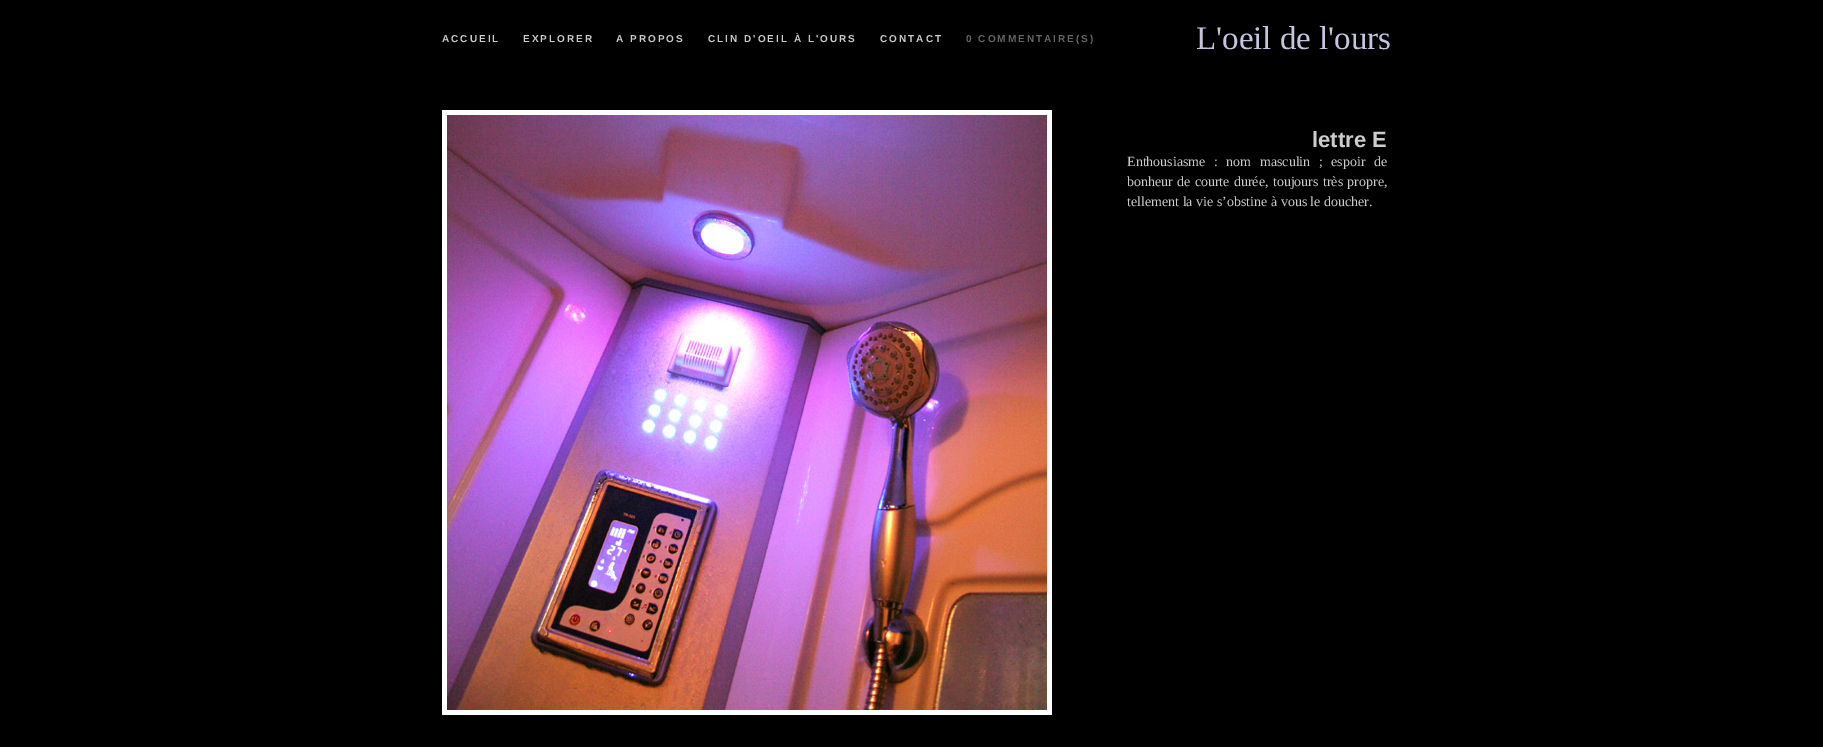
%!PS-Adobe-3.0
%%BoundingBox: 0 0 1823 747
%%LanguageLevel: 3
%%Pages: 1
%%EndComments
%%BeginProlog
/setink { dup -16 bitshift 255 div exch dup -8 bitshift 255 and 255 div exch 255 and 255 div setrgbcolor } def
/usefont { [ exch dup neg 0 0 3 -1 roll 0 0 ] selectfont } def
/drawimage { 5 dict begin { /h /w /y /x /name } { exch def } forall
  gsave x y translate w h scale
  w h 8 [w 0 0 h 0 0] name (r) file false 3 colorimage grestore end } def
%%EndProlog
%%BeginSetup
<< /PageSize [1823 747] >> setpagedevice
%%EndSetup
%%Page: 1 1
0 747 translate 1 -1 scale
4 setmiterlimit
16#000000 setink
0 0 1823 747 rectfill
/LiberationSans-Bold 10 usefont
16#CCCCCC setink
442 42 moveto 2 0 (ACCUEIL) ashow
523 42 moveto 2 0 (EXPLORER) ashow
616 42 moveto 2 0 (A PROPOS) ashow
708 42 moveto 2 0 (CLIN D'OEIL À L'OURS) ashow
880 42 moveto 2 0 (CONTACT) ashow
16#666666 setink
966 42 moveto 2 0 (0 COMMENTAIRE\(S\)) ashow
/LiberationSerif-Regular 33 usefont
16#C6C5E0 setink
1196 49 moveto (L'oeil de l'ours) show
16#FFFFFF setink
442 110 610 605 rectfill
(img1.raw) 447 115 600 595 drawimage
/LiberationSans-Bold 22 usefont
16#CCCCCC setink
1312 147 moveto (lettre E) show
/LiberationSerif-Regular 14 usefont
1127 166 moveto 5 0 32 (Enthousiasme : nom masculin ; espoir de) widthshow
1127 186 moveto 0.75 0 32 (bonheur de courte durée, toujours très propre,) widthshow
1127 206 moveto (tellement la vie s’obstine à vous le doucher.) show
showpage
%%EOF
